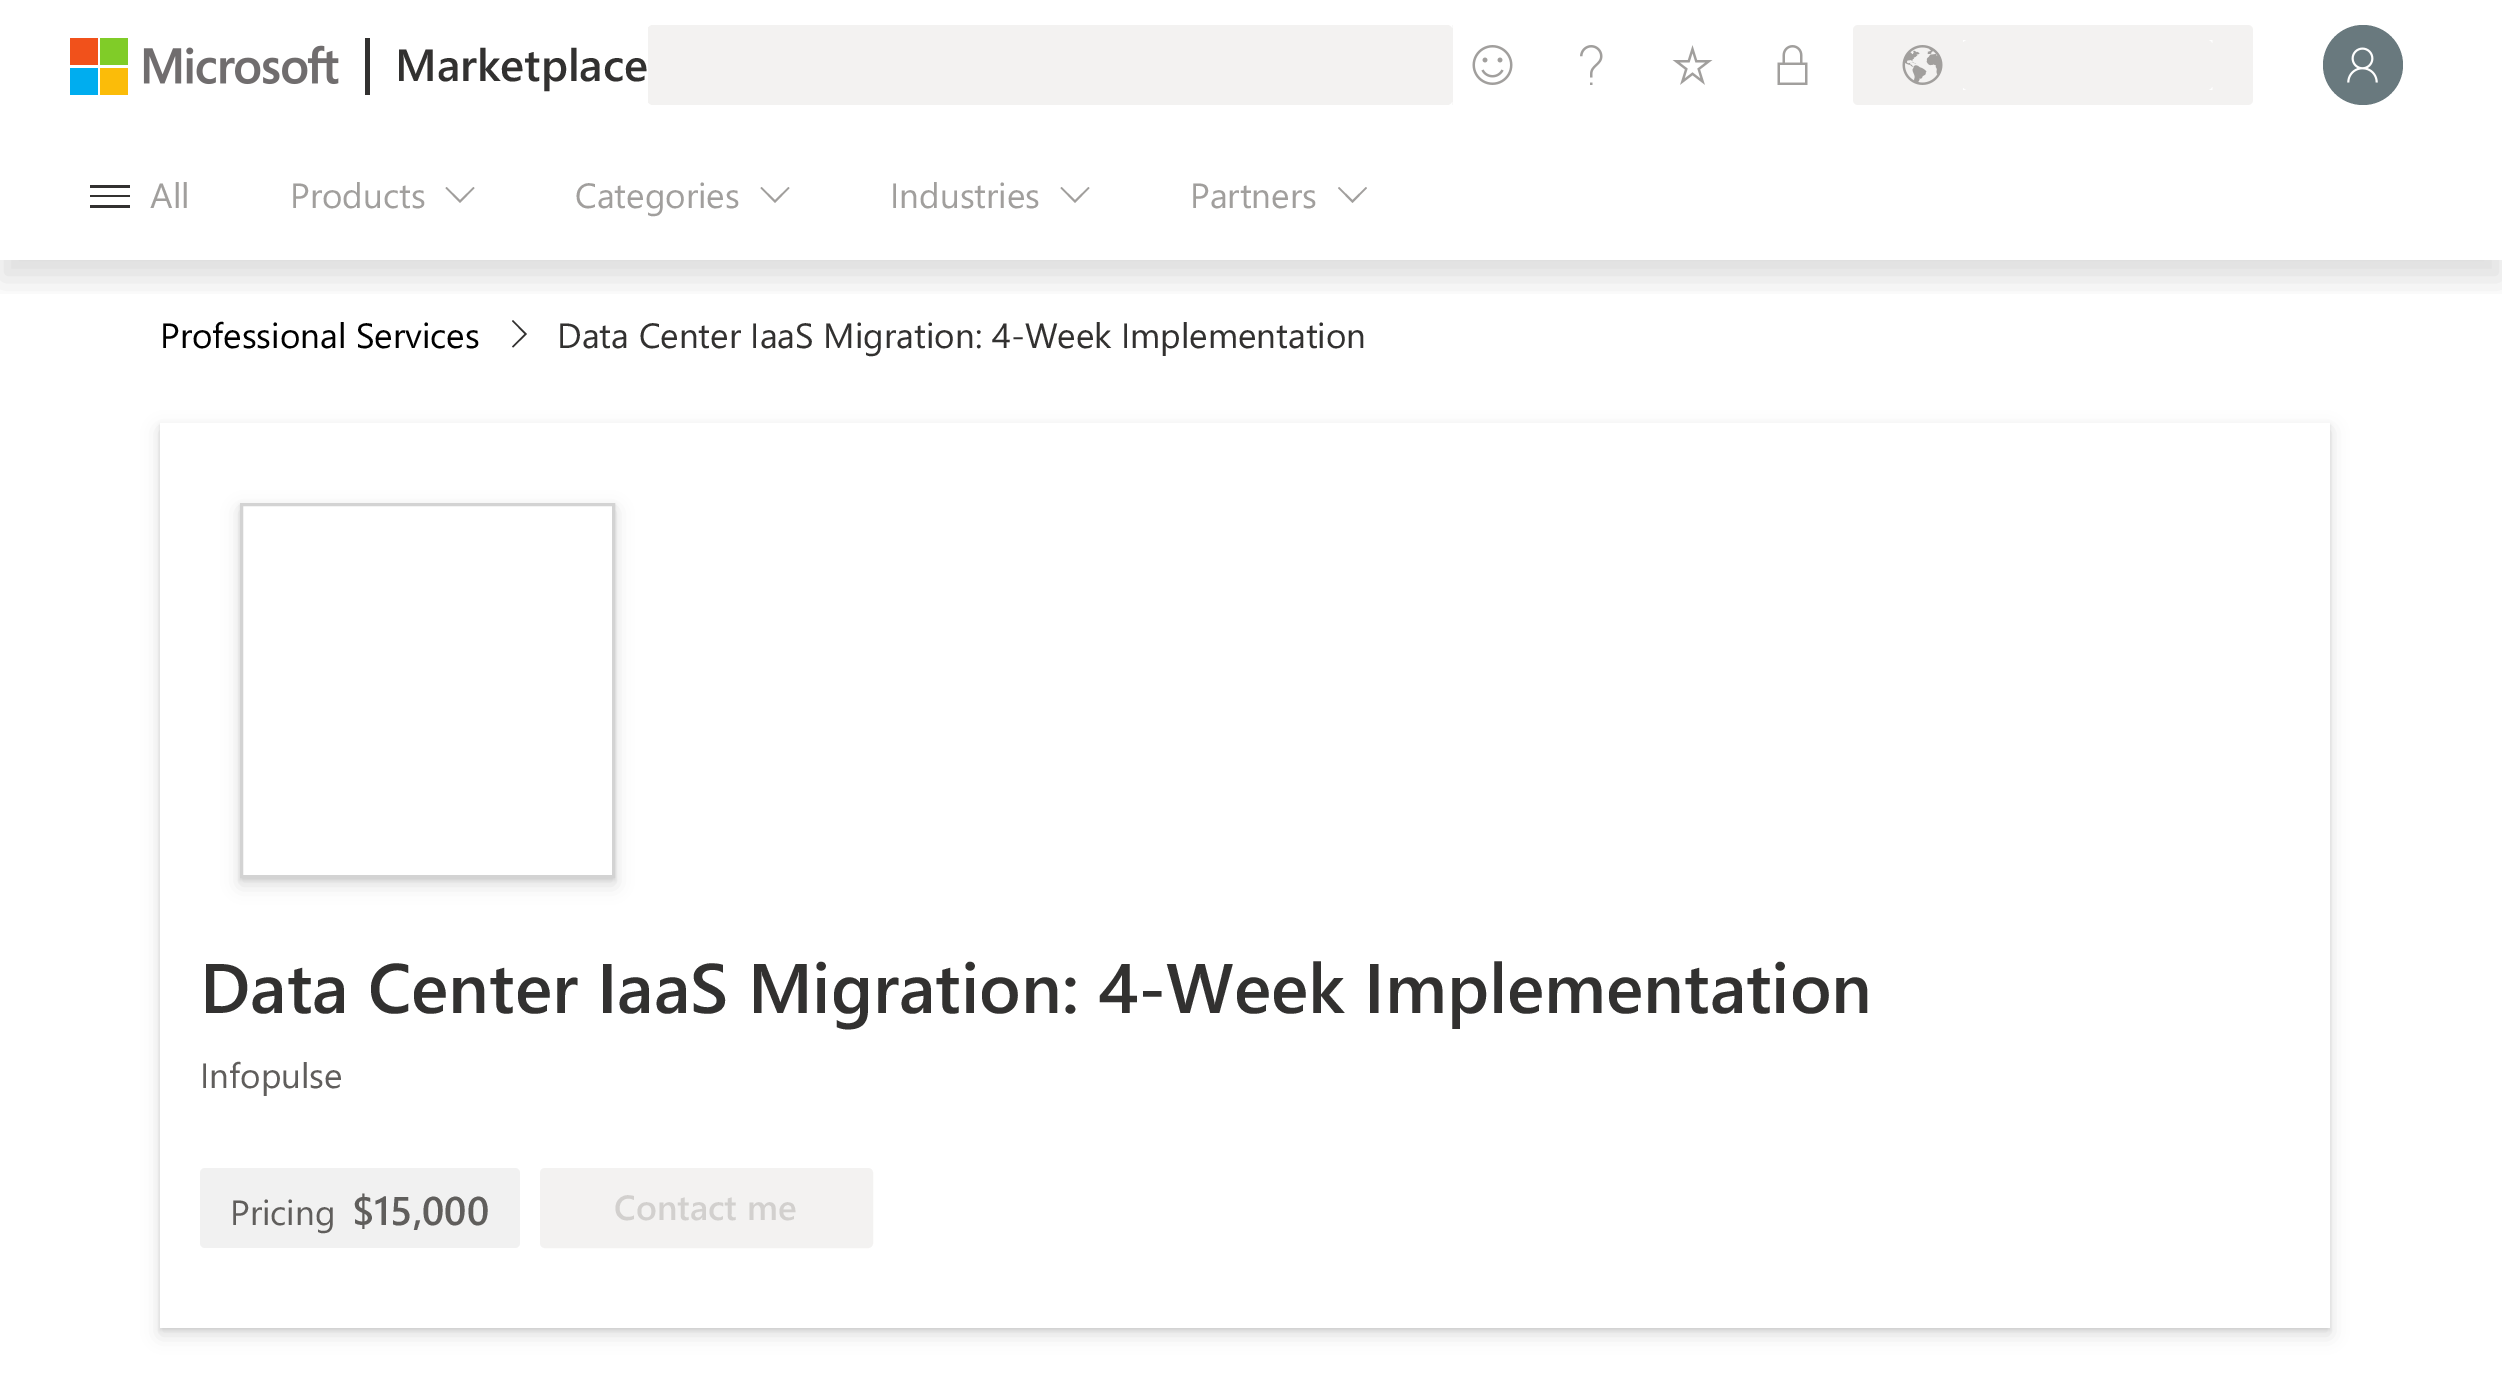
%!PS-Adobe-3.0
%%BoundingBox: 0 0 2502 1383
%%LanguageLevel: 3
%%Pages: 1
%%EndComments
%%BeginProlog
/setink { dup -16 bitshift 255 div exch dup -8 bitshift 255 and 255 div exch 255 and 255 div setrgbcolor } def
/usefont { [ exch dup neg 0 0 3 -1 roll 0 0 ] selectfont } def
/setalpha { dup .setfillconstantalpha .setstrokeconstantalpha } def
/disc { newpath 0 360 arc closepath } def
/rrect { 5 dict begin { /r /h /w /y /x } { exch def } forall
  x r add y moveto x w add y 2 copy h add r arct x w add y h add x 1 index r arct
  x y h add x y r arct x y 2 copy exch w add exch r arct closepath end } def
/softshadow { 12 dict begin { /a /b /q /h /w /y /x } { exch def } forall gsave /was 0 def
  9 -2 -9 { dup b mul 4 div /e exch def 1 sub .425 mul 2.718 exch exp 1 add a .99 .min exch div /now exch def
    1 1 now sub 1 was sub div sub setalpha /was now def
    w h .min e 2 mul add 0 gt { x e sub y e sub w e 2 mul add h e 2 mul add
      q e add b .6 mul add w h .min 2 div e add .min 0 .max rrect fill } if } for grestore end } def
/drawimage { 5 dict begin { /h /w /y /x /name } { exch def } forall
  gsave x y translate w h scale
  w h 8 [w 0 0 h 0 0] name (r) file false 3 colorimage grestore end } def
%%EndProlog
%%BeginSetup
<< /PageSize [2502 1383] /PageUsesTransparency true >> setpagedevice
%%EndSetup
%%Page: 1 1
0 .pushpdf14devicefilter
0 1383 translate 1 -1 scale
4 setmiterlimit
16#FFFFFF setink
0 0 2502 1383 rectfill
16#323130 setink
512 346.5 moveto 524.5 334 lineto 512 321 lineto 513 320 lineto 527 334 lineto 513 347.5 lineto closepath fill
gsave
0 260 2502 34 rectclip
16#000000 setink
0 20 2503 260 0 15 0.12 softshadow
grestore
(img1.raw) 70 38 269 57 drawimage
365 38 5 57 rectfill
/SegoeUI-SemiBold 45 usefont
395 81 moveto (Marketplace) show
16#F3F2F1 setink
648 25 805 80 rectfill
(img2.raw) 648 25 3 2 drawimage
(img3.raw) 1449 25 4 3 drawimage
(img4.raw) 648 103 3 2 drawimage
(img5.raw) 1449 102 4 3 drawimage
(img6.raw) 1472 45 41 40 drawimage
(img7.raw) 1580 45 23 40 drawimage
(img8.raw) 1672 45 41 40 drawimage
(img9.raw) 1777 45 31 40 drawimage
1853 25 400 80 5 rrect fill
(img10.raw) 1902 45 41 40 drawimage
(img2.raw) 1963 40 3 2 drawimage
(img3.raw) 2209 40 4 3 drawimage
(img4.raw) 1963 88 3 2 drawimage
(img5.raw) 2209 87 4 3 drawimage
16#69797E setink
2363 65 40 disc fill
(img11.raw) 2347 47 31 36 drawimage
16#323130 setink
130 188 moveto 90 188 lineto 90 185 lineto 130 185 lineto closepath 130 208 moveto 90 208 lineto 90 205 lineto 130 205 lineto closepath 130 197 moveto 90 197 lineto 90 195 lineto 130 195 lineto closepath fill
/SegoeUI-Regular 35 usefont
16#A19F9D setink
150 208 moveto (All) show
290 208 moveto (Products) show
473.5 187 moveto 474.5 188 lineto 460 203 lineto 445.5 188 lineto 446.5 187 lineto 460 200 lineto closepath fill
575 208 moveto (Categories) show
788.5 187 moveto 789.5 188 lineto 775 203 lineto 760.5 188 lineto 761.5 187 lineto 775 200 lineto closepath fill
890 208 moveto (Industries) show
1088.5 187 moveto 1089.5 188 lineto 1075 203 lineto 1060.5 188 lineto 1061.5 187 lineto 1075 200 lineto closepath fill
1190 208 moveto (Partners) show
1366 187 moveto 1367 188 lineto 1352.5 203 lineto 1338 188 lineto 1339 187 lineto 1352.5 200 lineto closepath fill
16#000000 setink
160 348 moveto (Professional Services) show
16#323130 setink
557 348 moveto (Data Center IaaS Migration: 4-Week Implementation) show
16#000000 setink
160 425 2170 905 0 2 0.11 softshadow
160 430 2170 905 0 9 0.13 softshadow
16#FFFFFF setink
160 423 2170 905 rectfill
gsave
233 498 moveto 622 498 lineto 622 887 lineto 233 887 lineto closepath 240 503 moveto 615 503 lineto 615 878 lineto 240 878 lineto closepath eoclip newpath
16#000000 setink
240 505 375 375 0 2 0.11 softshadow
grestore
gsave
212 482 moveto 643 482 lineto 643 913 lineto 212 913 lineto closepath 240 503 moveto 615 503 lineto 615 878 lineto 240 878 lineto closepath eoclip newpath
16#000000 setink
240 510 375 375 0 9 0.13 softshadow
grestore
16#D3D3D3 setink
3 setlinewidth
241.5 504.5 372 372 rectstroke
/SegoeUI-SemiBold 70 usefont
16#323130 setink
200 1013 moveto (Data Center IaaS Migration: 4-Week Implementation) show
/SegoeUI-Regular 35 usefont
16#605E5C setink
200 1088 moveto (Infopulse) show
16#F1F1F1 setink
200 1168 320 80 5 rrect fill
16#605E5C setink
230 1225 moveto (Pricing) show
/SegoeUI-SemiBold 40 usefont
352 1225 moveto ($15,000) show
16#F3F2F1 setink
541.5 1169.5 330 77 3.5 rrect gsave fill grestore
stroke
/SegoeUI-SemiBold 35 usefont
16#D2D0CE setink
614 1220 moveto (Contact me) show
.poppdf14devicefilter showpage
%%EOF
